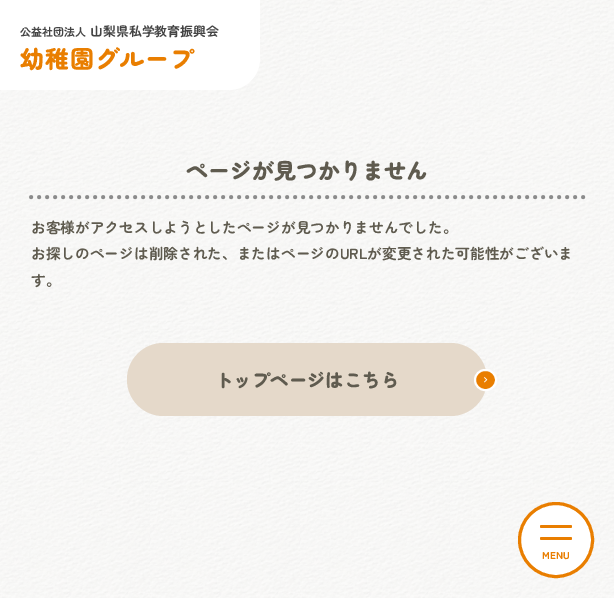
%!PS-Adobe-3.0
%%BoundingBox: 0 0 614 598
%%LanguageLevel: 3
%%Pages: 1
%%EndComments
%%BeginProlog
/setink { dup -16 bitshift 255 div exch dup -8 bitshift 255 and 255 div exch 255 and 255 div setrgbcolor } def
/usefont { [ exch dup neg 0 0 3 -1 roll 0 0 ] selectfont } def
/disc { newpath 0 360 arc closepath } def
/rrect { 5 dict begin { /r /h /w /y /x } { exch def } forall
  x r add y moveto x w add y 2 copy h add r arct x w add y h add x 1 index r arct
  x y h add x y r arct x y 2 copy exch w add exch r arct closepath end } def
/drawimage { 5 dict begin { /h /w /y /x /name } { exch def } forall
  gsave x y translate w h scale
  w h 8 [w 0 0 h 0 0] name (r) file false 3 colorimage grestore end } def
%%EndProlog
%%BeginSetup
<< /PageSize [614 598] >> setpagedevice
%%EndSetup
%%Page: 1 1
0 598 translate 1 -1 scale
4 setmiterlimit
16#FFFFFF setink
0 0 614 598 rectfill
(img1.raw) 0 0 614 598 drawimage
0 0 moveto 260 0 lineto 260 59 lineto 260 76 246 90 229 90 curveto 0 90 lineto closepath fill
/ZenMaruGothic-Bold 11 usefont
16#444444 setink
20 36 moveto (公益社団法人) show
/ZenMaruGothic-Bold 12.9 usefont
90 36 moveto (山梨県私学教育振興会) show
/ZenMaruGothic-Black 24 usefont
16#E97E00 setink
20 68 moveto 1 0 (幼稚園グループ) ashow
16#FFFFFF setink
556 540 36.5 disc gsave fill grestore
16#E97E00 setink
3 setlinewidth
stroke
540 525 32 3 1.5 rrect fill
540 537 32 3 1.5 rrect fill
/ZenMaruGothic-Black 10 usefont
542 559 moveto (MENU) show
16#8B8B8B setink
4 setlinewidth
1 setlinecap
[0 8] 0 setdash
31 197 moveto 583 197 lineto stroke
/ZenMaruGothic-Black 22 usefont
16#5F5B4F setink
186 179 moveto (ページが見つかりません) show
/ZenMaruGothic-Bold 14.7 usefont
[
    [(お客様がアクセスしようとしたページが見つかりませんでした。) 31 233]
    [(お探しのページは削除された、またはページのURLが変更された可能性がございま) 31 259]
    [(す。) 31 286]
] { aload pop moveto show } forall
16#E5D9CA setink
127 343 360 73 36.5 rrect fill
/ZenMaruGothic-Black 18.4 usefont
16#5F5B4F setink
215 387 moveto (トップページはこちら) show
16#E97E00 setink
475 370 21 20 10 rrect gsave fill grestore
16#FFFFFF setink
2 setlinewidth
0 setlinecap
[] 0 setdash
stroke
(img2.raw) 484 377 4 6 drawimage
showpage
%%EOF
